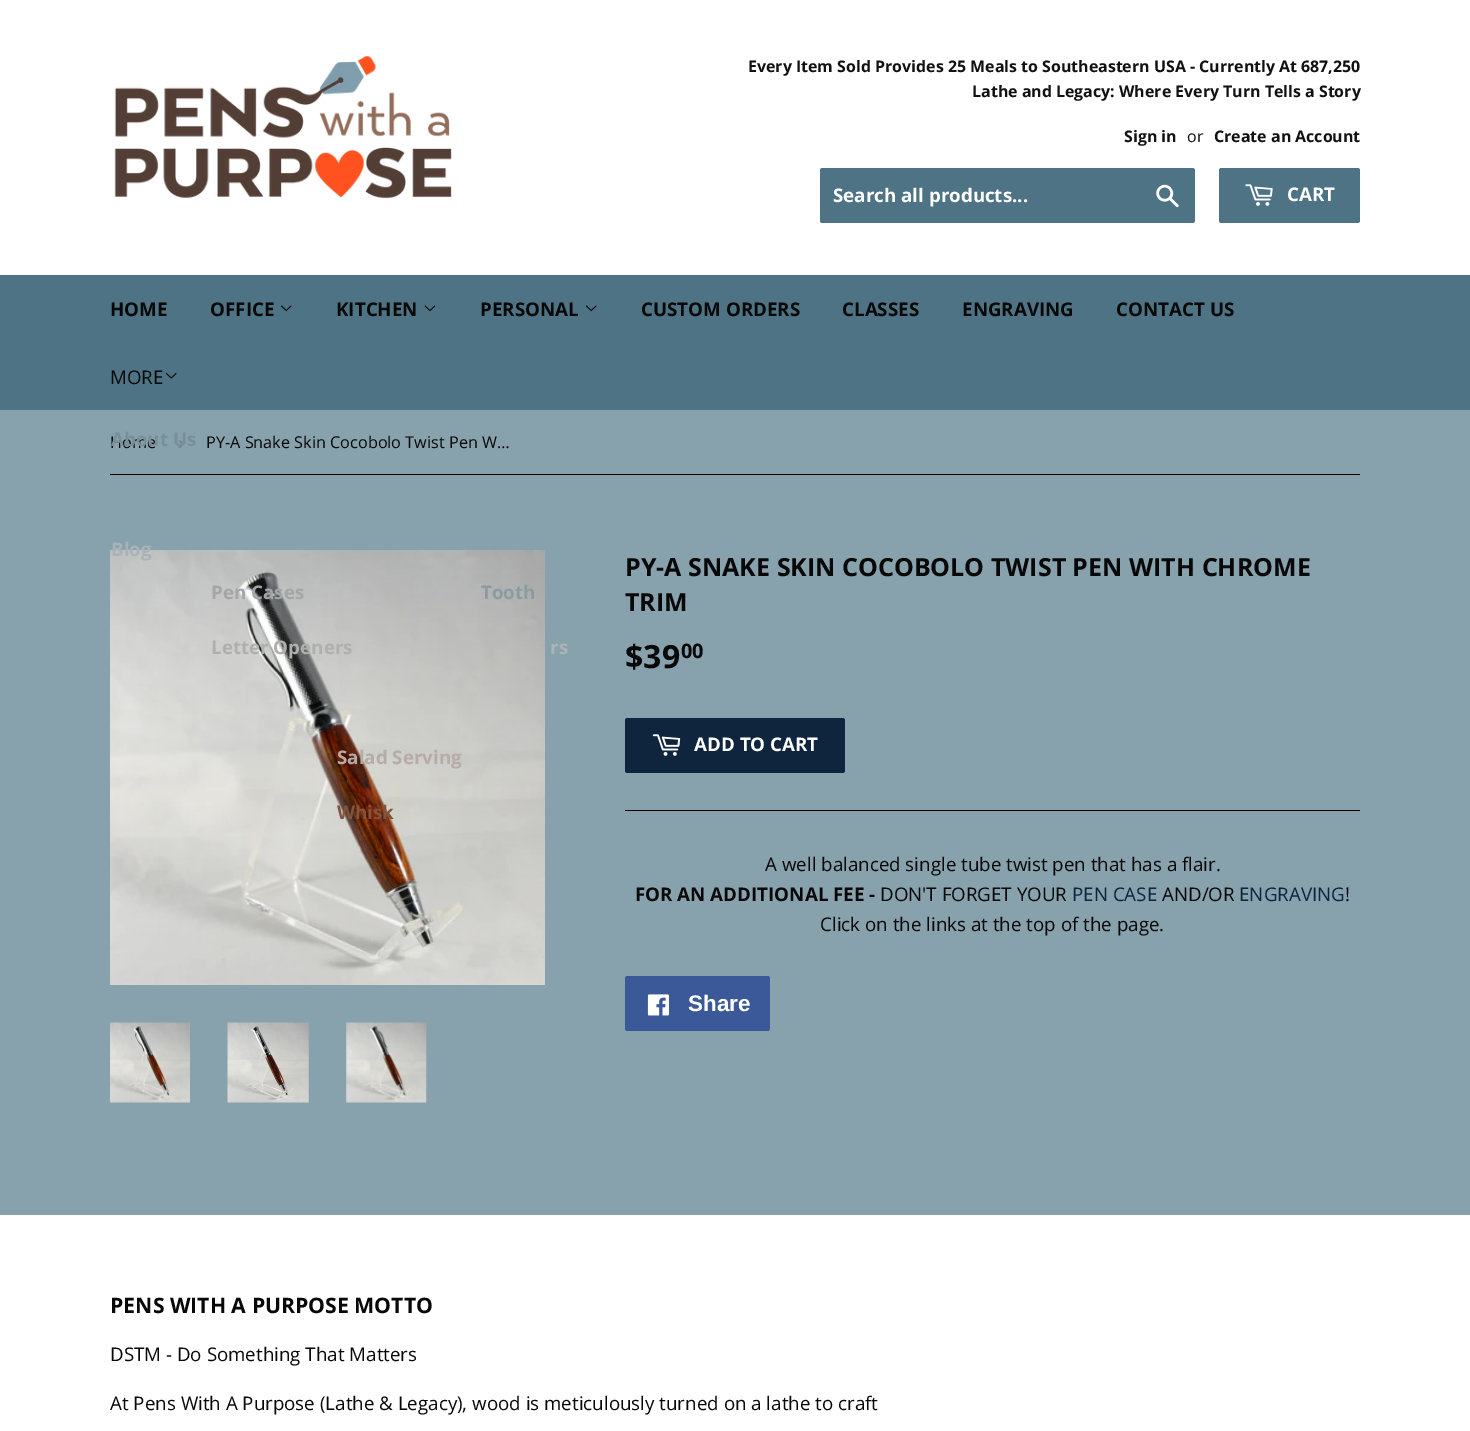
%!PS-Adobe-3.0
%%BoundingBox: 0 0 1470 1431
%%LanguageLevel: 3
%%Pages: 1
%%EndComments
%%BeginProlog
/setink { dup -16 bitshift 255 div exch dup -8 bitshift 255 and 255 div exch 255 and 255 div setrgbcolor } def
/usefont { [ exch dup neg 0 0 3 -1 roll 0 0 ] selectfont } def
/rrect { 5 dict begin { /r /h /w /y /x } { exch def } forall
  x r add y moveto x w add y 2 copy h add r arct x w add y h add x 1 index r arct
  x y h add x y r arct x y 2 copy exch w add exch r arct closepath end } def
/drawimage { 5 dict begin { /h /w /y /x /name } { exch def } forall
  gsave x y translate w h scale
  w h 8 [w 0 0 h 0 0] name (r) file false 3 colorimage grestore end } def
%%EndProlog
%%BeginSetup
<< /PageSize [1470 1431] >> setpagedevice
%%EndSetup
%%Page: 1 1
0 1431 translate 1 -1 scale
4 setmiterlimit
16#87A1AD setink
0 0 1470 1431 rectfill
16#FFFFFF setink
0 0 1470 275 rectfill
(img1.raw) 114 56 338 143 drawimage
/OpenSans-Bold 15.95 usefont
16#121010 setink
[
    [(Every Item Sold Provides 25 Meals to Southeastern USA - Currently At 687,250) 748 72]
    [(Lathe and Legacy: Where Every Turn Tells a Story) 972 97]
    [(Sign in) 1124 142]
] { aload pop moveto show } forall
/OpenSans-Regular 15.95 usefont
1187 142 moveto (or) show
/OpenSans-Bold 15.95 usefont
1214 142 moveto (Create an Account) show
16#4D7385 setink
820 168 375 55 2.5 rrect fill
/OpenSans-Bold 18.75 usefont
16#FFFFFF setink
833 202 moveto (Search all products...) show
(img2.raw) 1156 184 23 24 drawimage
16#4D7385 setink
1219 168 141 55 2.5 rrect fill
(img3.raw) 1245 184 28 22 drawimage
16#FFFFFF setink
1287 201 moveto (CART) show
16#4D7385 setink
0 275 1470 135 rectfill
16#080808 setink
110 316 moveto (HOME) show
210 316 moveto (OFFICE) show
(img4.raw) 280 305 12 7 drawimage
(img7.raw) 110 550 435 435 drawimage
16#A4A5A6 setink
211 599 moveto (Pen Cases) show
16#AFB0AE setink
211 654 moveto (Letter Openers) show
16#080808 setink
336 316 moveto (KITCHEN) show
(img5.raw) 424 305 12 7 drawimage
16#B6ACA5 setink
337 764 moveto (Salad Serving) show
16#82533D setink
337 819 moveto (Whisk) show
16#080808 setink
480 316 moveto (PERSONAL) show
(img4.raw) 585 305 12 7 drawimage
16#8A9BA2 setink
481 599 moveto (Tooth) show
16#ADB4B5 setink
550 654 moveto (rs) show
16#080808 setink
[
    [(CUSTOM ORDERS) 641 316]
    [(CLASSES) 842 316]
    [(ENGRAVING) 962 316]
    [(CONTACT US) 1116 316]
] { aload pop moveto show } forall
/OpenSans-Regular 18.75 usefont
110 384 moveto (MORE) show
(img6.raw) 165 372 12 7 drawimage
/OpenSans-Regular 16.25 usefont
110 448 moveto (Home) show
/LiberationSans-Regular 18.75 usefont
16#767676 setink
178 449 moveto (›) show
/OpenSans-Bold 18.75 usefont
16#788F9A setink
111 446 moveto (About Us) show
16#A6B3B8 setink
111 556 moveto (Blog) show
16#0B0000 setink
110 474 1250 1 rectfill
/OpenSans-Regular 16.25 usefont
16#080808 setink
206 448 moveto (PY-A Snake Skin Cocobolo Twist Pen W…) show
(img8.raw) 110 1022 80 81 drawimage
(img9.raw) 227 1022 82 81 drawimage
(img10.raw) 346 1022 81 81 drawimage
/OpenSans-Bold 25 usefont
625 576 moveto (PY-A SNAKE SKIN COCOBOLO TWIST PEN WITH CHROME) show
625 611 moveto (TRIM) show
/OpenSans-Bold 32 usefont
625 668 moveto ($39) show
/OpenSans-Bold 20 usefont
681 658 moveto (00) show
16#0F243D setink
625 718 220 55 2.5 rrect fill
(img11.raw) 652 734 29 22 drawimage
/OpenSans-Bold 18.75 usefont
16#FFFFFF setink
694 751 moveto (ADD TO CART) show
16#0B0000 setink
625 810 735 1 rectfill
/OpenSans-Regular 18.75 usefont
16#080808 setink
765 871 moveto (A well balanced single tube twist pen that has a flair.) show
/OpenSans-Bold 18.75 usefont
635 901 moveto (FOR AN ADDITIONAL FEE -) show
/OpenSans-Regular 18.75 usefont
880 901 moveto (DON'T FORGET YOUR) show
16#0F243D setink
1072 901 moveto (PEN CASE) show
16#080808 setink
1162 901 moveto (AND/OR) show
16#0F243D setink
1239 901 moveto (ENGRAVING) show
16#080808 setink
1345 901 moveto (!) show
820 931 moveto (Click on the links at the top of the page.) show
16#3B5998 setink
625 976 145 55 2.5 rrect fill
(img12.raw) 647 994 22 22 drawimage
/LiberationSans-Bold 22.5 usefont
16#FFFFFF setink
688 1011 moveto (Share) show
0 1215 1470 216 rectfill
/OpenSans-Bold 21.25 usefont
16#080808 setink
110 1313 moveto (PENS WITH A PURPOSE MOTTO) show
/OpenSans-Regular 18.75 usefont
110 1361 moveto (DSTM - Do Something That Matters) show
110 1410 moveto (At Pens With A Purpose \(Lathe & Legacy\), wood is meticulously turned on a lathe to craft) show
showpage
%%EOF
